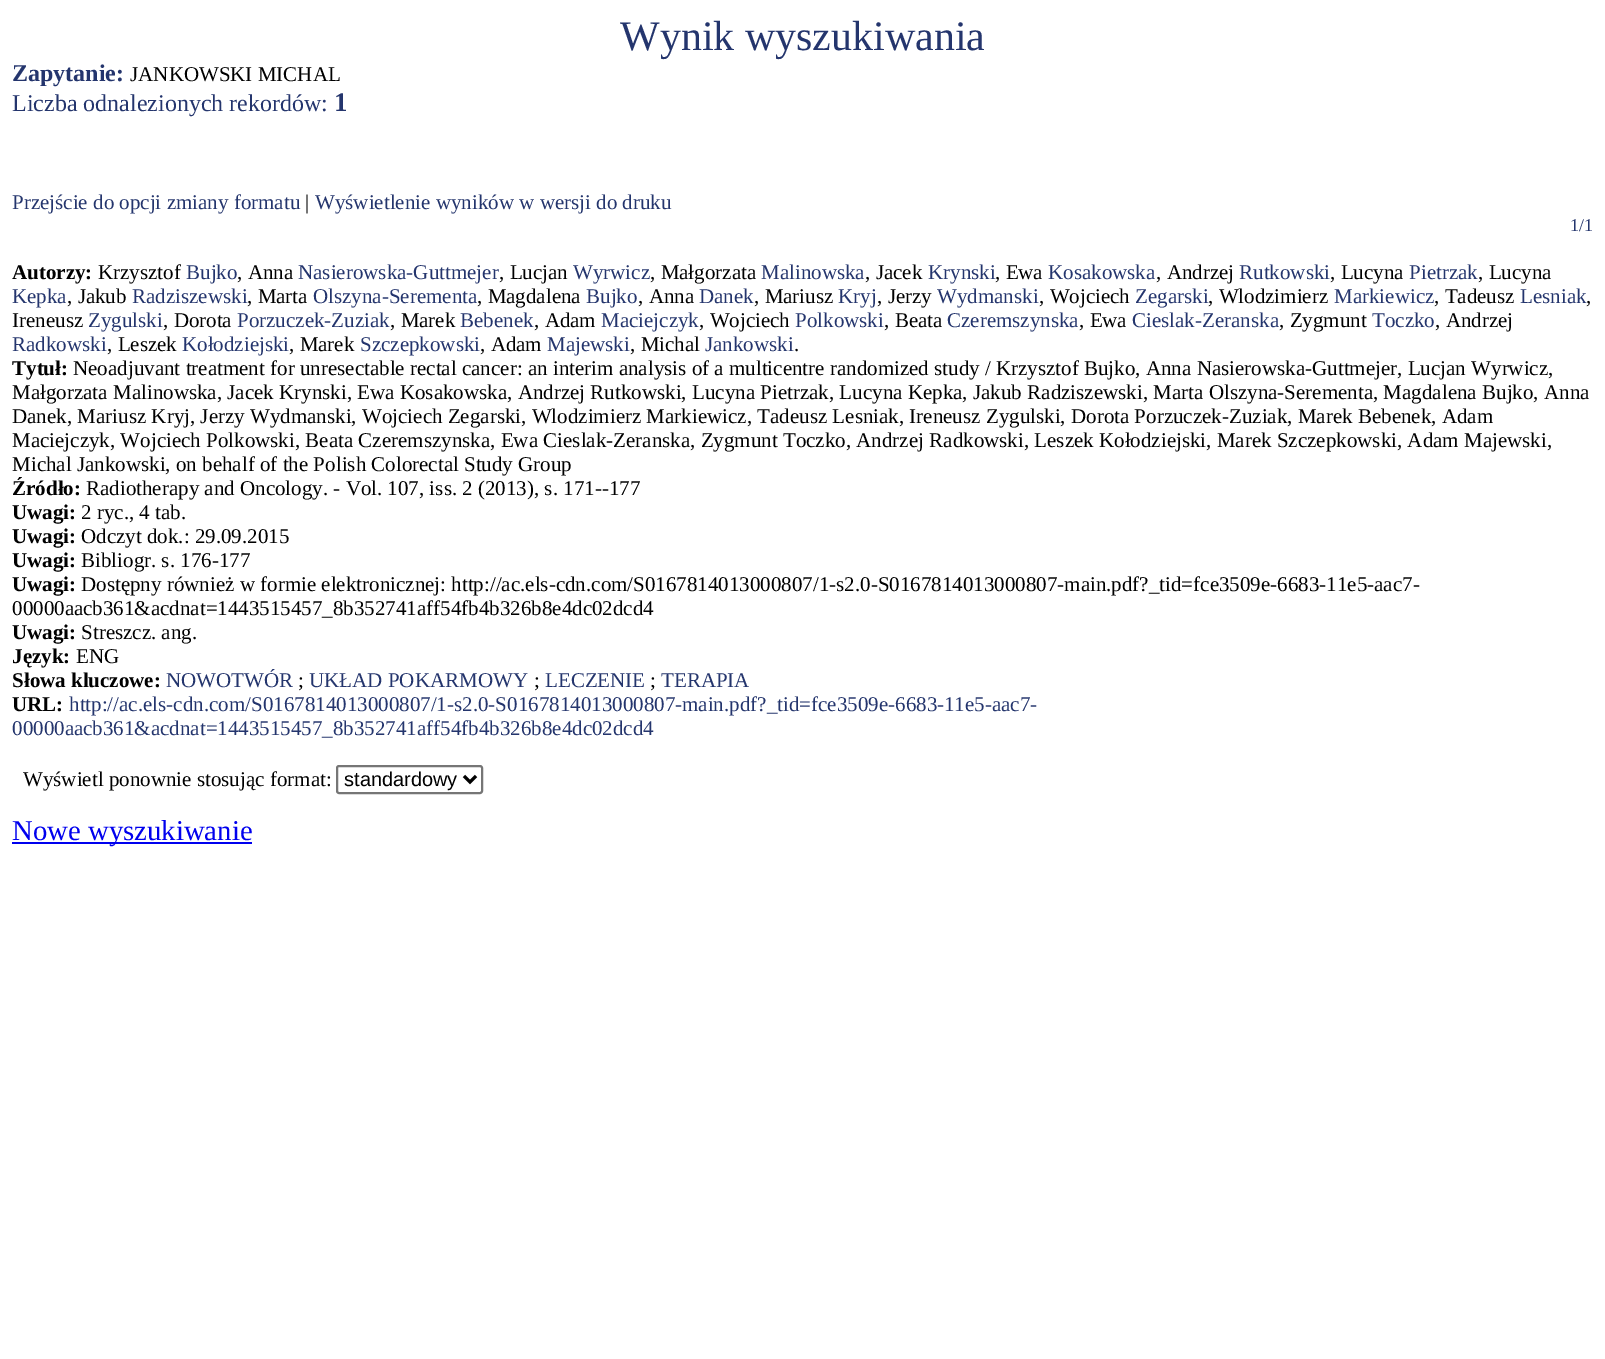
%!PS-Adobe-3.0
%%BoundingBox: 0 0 1605 1359
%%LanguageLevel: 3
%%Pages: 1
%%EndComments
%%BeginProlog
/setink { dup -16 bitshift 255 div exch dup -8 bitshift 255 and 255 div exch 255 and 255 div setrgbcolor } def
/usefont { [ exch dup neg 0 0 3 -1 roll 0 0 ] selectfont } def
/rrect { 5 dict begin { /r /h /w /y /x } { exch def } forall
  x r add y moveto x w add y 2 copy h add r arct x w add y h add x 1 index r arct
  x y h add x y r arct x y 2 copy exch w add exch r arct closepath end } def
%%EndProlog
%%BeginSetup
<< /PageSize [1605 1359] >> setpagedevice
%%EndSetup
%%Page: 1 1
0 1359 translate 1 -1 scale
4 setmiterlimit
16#FFFFFF setink
0 0 1605 1359 rectfill
/LiberationSerif-Regular 42 usefont
16#24356D setink
620 50 moveto (Wynik wyszukiwania) show
/LiberationSerif-Bold 24 usefont
12 81 moveto (Zapytanie:) show
/LiberationSerif-Regular 21 usefont
16#000000 setink
130 81 moveto (JANKOWSKI MICHAL) show
/LiberationSerif-Regular 24 usefont
16#24356D setink
12 111 moveto (Liczba odnalezionych rekordów:) show
/LiberationSerif-Bold 27 usefont
334 111 moveto (1) show
/LiberationSerif-Regular 21 usefont
12 209 moveto (Przejście do opcji zmiany formatu) show
16#000000 setink
305 209 moveto (|) show
16#24356D setink
315 209 moveto (Wyświetlenie wyników w wersji do druku) show
/LiberationSerif-Regular 18 usefont
1570 231 moveto (1/1) show
/LiberationSerif-Bold 21 usefont
16#000000 setink
12 279 moveto (Autorzy:) show
/LiberationSerif-Regular 21 usefont
98 279 moveto (Krzysztof) show
16#24356D setink
186 279 moveto (Bujko) show
16#000000 setink
237 279 moveto (, Anna) show
16#24356D setink
298 279 moveto (Nasierowska-Guttmejer) show
16#000000 setink
499 279 moveto (, Lucjan) show
16#24356D setink
573 279 moveto (Wyrwicz) show
16#000000 setink
650 279 moveto (, Małgorzata) show
16#24356D setink
761 279 moveto (Malinowska) show
16#000000 setink
865 279 moveto (, Jacek) show
16#24356D setink
928 279 moveto (Krynski) show
16#000000 setink
995 279 moveto (, Ewa) show
16#24356D setink
1048 279 moveto (Kosakowska) show
16#000000 setink
1156 279 moveto (, Andrzej) show
16#24356D setink
1239 279 moveto (Rutkowski) show
16#000000 setink
1330 279 moveto (, Lucyna) show
16#24356D setink
1409 279 moveto (Pietrzak) show
16#000000 setink
1478 279 moveto (, Lucyna) show
16#24356D setink
12 303 moveto (Kepka) show
16#000000 setink
67 303 moveto (, Jakub) show
16#24356D setink
132 303 moveto (Radziszewski) show
16#000000 setink
247 303 moveto (, Marta) show
16#24356D setink
313 303 moveto (Olszyna-Serementa) show
16#000000 setink
477 303 moveto (, Magdalena) show
16#24356D setink
586 303 moveto (Bujko) show
16#000000 setink
638 303 moveto (, Anna) show
16#24356D setink
699 303 moveto (Danek) show
16#000000 setink
754 303 moveto (, Mariusz) show
16#24356D setink
838 303 moveto (Kryj) show
16#000000 setink
877 303 moveto (, Jerzy) show
16#24356D setink
937 303 moveto (Wydmanski) show
16#000000 setink
1039 303 moveto (, Wojciech) show
16#24356D setink
1135 303 moveto (Zegarski) show
16#000000 setink
1208 303 moveto (, Wlodzimierz) show
16#24356D setink
1334 303 moveto (Markiewicz) show
16#000000 setink
1434 303 moveto (, Tadeusz) show
16#24356D setink
1520 303 moveto (Lesniak) show
16#000000 setink
1586 303 moveto (,) show
12 327 moveto (Ireneusz) show
16#24356D setink
88 327 moveto (Zygulski) show
16#000000 setink
163 327 moveto (, Dorota) show
16#24356D setink
237 327 moveto (Porzuczek-Zuziak) show
16#000000 setink
390 327 moveto (, Marek) show
16#24356D setink
460 327 moveto (Bebenek) show
16#000000 setink
534 327 moveto (, Adam) show
16#24356D setink
601 327 moveto (Maciejczyk) show
16#000000 setink
699 327 moveto (, Wojciech) show
16#24356D setink
795 327 moveto (Polkowski) show
16#000000 setink
884 327 moveto (, Beata) show
16#24356D setink
947 327 moveto (Czeremszynska) show
16#000000 setink
1079 327 moveto (, Ewa) show
16#24356D setink
1132 327 moveto (Cieslak-Zeranska) show
16#000000 setink
1279 327 moveto (, Zygmunt) show
16#24356D setink
1372 327 moveto (Toczko) show
16#000000 setink
1435 327 moveto (, Andrzej) show
16#24356D setink
12 351 moveto (Radkowski) show
16#000000 setink
107 351 moveto (, Leszek) show
16#24356D setink
182 351 moveto (Kołodziejski) show
16#000000 setink
289 351 moveto (, Marek) show
16#24356D setink
360 351 moveto (Szczepkowski) show
16#000000 setink
480 351 moveto (, Adam) show
16#24356D setink
547 351 moveto (Majewski) show
16#000000 setink
630 351 moveto (, Michal) show
16#24356D setink
705 351 moveto (Jankowski) show
16#000000 setink
794 351 moveto (.) show
/LiberationSerif-Bold 21 usefont
12 375 moveto (Tytuł:) show
/LiberationSerif-Regular 21 usefont
[
    [(Neoadjuvant treatment for unresectable rectal cancer: an interim analysis of a multicentre randomized study / Krzysztof Bujko, Anna Nasierowska-Guttmejer, Lucjan Wyrwicz,) 73 375]
    [(Małgorzata Malinowska, Jacek Krynski, Ewa Kosakowska, Andrzej Rutkowski, Lucyna Pietrzak, Lucyna Kepka, Jakub Radziszewski, Marta Olszyna-Serementa, Magdalena Bujko, Anna) 12 399]
    [(Danek, Mariusz Kryj, Jerzy Wydmanski, Wojciech Zegarski, Wlodzimierz Markiewicz, Tadeusz Lesniak, Ireneusz Zygulski, Dorota Porzuczek-Zuziak, Marek Bebenek, Adam) 12 423]
    [(Maciejczyk, Wojciech Polkowski, Beata Czeremszynska, Ewa Cieslak-Zeranska, Zygmunt Toczko, Andrzej Radkowski, Leszek Kołodziejski, Marek Szczepkowski, Adam Majewski,) 12 447]
    [(Michal Jankowski, on behalf of the Polish Colorectal Study Group) 12 471]
] { aload pop moveto show } forall
/LiberationSerif-Bold 21 usefont
12 495 moveto (Źródło:) show
/LiberationSerif-Regular 21 usefont
86 495 moveto (Radiotherapy and Oncology. - Vol. 107, iss. 2 \(2013\), s. 171--177) show
/LiberationSerif-Bold 21 usefont
12 519 moveto (Uwagi:) show
/LiberationSerif-Regular 21 usefont
81 519 moveto (2 ryc., 4 tab.) show
/LiberationSerif-Bold 21 usefont
12 543 moveto (Uwagi:) show
/LiberationSerif-Regular 21 usefont
81 543 moveto (Odczyt dok.: 29.09.2015) show
/LiberationSerif-Bold 21 usefont
12 567 moveto (Uwagi:) show
/LiberationSerif-Regular 21 usefont
81 567 moveto (Bibliogr. s. 176-177) show
/LiberationSerif-Bold 21 usefont
12 591 moveto (Uwagi:) show
/LiberationSerif-Regular 21 usefont
81 591 moveto (Dostępny również w formie elektronicznej: http://ac.els-cdn.com/S0167814013000807/1-s2.0-S0167814013000807-main.pdf?_tid=fce3509e-6683-11e5-aac7-) show
12 615 moveto (00000aacb361&acdnat=1443515457_8b352741aff54fb4b326b8e4dc02dcd4) show
/LiberationSerif-Bold 21 usefont
12 639 moveto (Uwagi:) show
/LiberationSerif-Regular 21 usefont
81 639 moveto (Streszcz. ang.) show
/LiberationSerif-Bold 21 usefont
12 663 moveto (Język:) show
/LiberationSerif-Regular 21 usefont
76 663 moveto (ENG) show
/LiberationSerif-Bold 21 usefont
12 687 moveto (Słowa kluczowe:) show
/LiberationSerif-Regular 21 usefont
16#24356D setink
166 687 moveto (NOWOTWÓR) show
16#000000 setink
298 687 moveto (;) show
16#24356D setink
309 687 moveto (UKŁAD POKARMOWY) show
16#000000 setink
534 687 moveto (;) show
16#24356D setink
545 687 moveto (LECZENIE) show
16#000000 setink
650 687 moveto (;) show
16#24356D setink
661 687 moveto (TERAPIA) show
/LiberationSerif-Bold 21 usefont
16#000000 setink
12 711 moveto (URL:) show
/LiberationSerif-Regular 21 usefont
16#24356D setink
69 711 moveto (http://ac.els-cdn.com/S0167814013000807/1-s2.0-S0167814013000807-main.pdf?_tid=fce3509e-6683-11e5-aac7-) show
12 735 moveto (00000aacb361&acdnat=1443515457_8b352741aff54fb4b326b8e4dc02dcd4) show
16#000000 setink
23 786 moveto (Wyświetl ponownie stosując format:) show
16#767676 setink
2 setlinewidth
337 766 145 27 2 rrect stroke
16#000000 setink
3 setlinewidth
464 776 moveto 470 782 lineto 476 776 lineto stroke
/LiberationSans-Regular 20 usefont
344 786 moveto (standardowy) show
16#0000EE setink
12 842 240 2 rectfill
/LiberationSerif-Regular 28.75 usefont
12 840 moveto (Nowe wyszukiwanie) show
showpage
%%EOF
